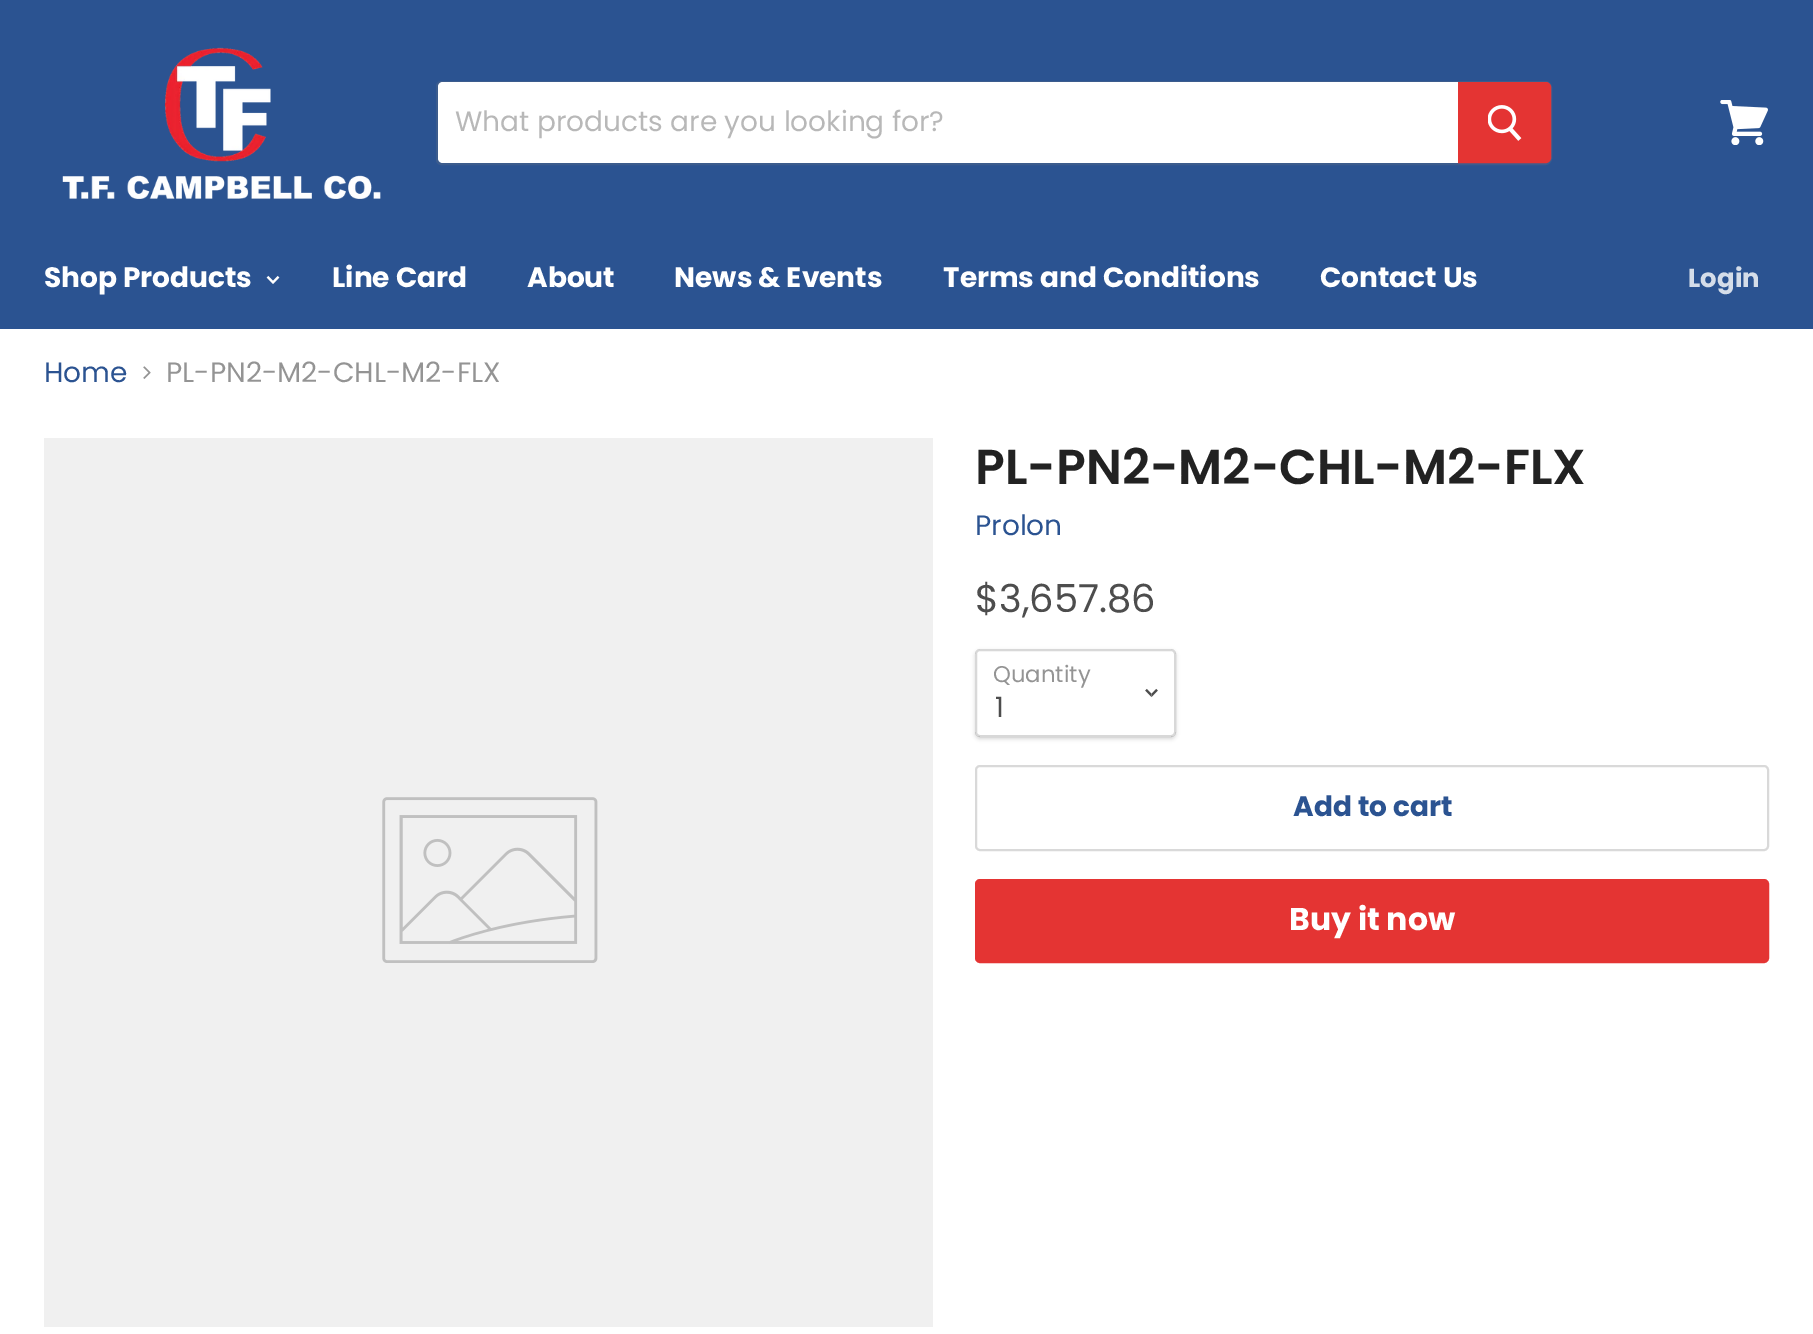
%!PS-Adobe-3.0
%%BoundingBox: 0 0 1813 1334
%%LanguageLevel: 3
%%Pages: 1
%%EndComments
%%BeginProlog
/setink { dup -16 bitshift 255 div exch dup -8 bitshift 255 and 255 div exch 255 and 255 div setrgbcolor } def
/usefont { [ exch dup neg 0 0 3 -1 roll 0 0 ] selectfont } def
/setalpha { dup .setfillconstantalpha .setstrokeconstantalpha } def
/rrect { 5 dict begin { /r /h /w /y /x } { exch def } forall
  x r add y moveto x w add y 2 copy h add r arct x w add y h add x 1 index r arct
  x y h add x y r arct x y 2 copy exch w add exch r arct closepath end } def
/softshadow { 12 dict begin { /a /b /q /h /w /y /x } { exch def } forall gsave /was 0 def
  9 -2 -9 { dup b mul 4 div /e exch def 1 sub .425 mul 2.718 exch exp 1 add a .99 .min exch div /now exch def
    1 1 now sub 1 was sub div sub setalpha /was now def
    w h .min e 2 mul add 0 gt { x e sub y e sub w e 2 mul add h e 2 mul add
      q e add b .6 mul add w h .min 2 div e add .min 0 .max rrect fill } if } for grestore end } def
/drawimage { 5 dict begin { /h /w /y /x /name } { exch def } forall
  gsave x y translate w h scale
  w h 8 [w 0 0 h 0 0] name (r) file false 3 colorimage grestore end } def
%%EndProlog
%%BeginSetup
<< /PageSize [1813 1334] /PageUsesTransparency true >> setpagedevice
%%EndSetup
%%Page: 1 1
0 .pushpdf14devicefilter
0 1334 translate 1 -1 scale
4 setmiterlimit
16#FFFFFF setink
0 0 1813 1334 rectfill
16#2B5391 setink
0 0 1813 329 rectfill
(img1.raw) 62 47 319 152 drawimage
0.2 setalpha
16#7F7F7F setink
2 setlinewidth
441 82 moveto 1545 82 lineto 1548.5 82 1551 84.5 1551 88 curveto 1551 158 lineto 1551 161.5 1548.5 164 1545 164 curveto 441 164 lineto 439 164 437 162 437 160 curveto 437 86 lineto 437 84 439 82 441 82 curveto closepath stroke
1 setalpha
16#FFFFFF setink
443 82 moveto 1458 82 lineto 1458 163 lineto 443 163 lineto 440 163 438 161 438 158 curveto 438 87 lineto 438 84 440 82 443 82 curveto closepath fill
/Poppins-Regular 28 usefont
16#B8B8B8 setink
455 131 moveto (What products are you looking for?) show
16#E43433 setink
1459 83 moveto 1546 83 lineto 1548 83 1550 85 1550 87 curveto 1550 158 lineto 1550 160 1548 162 1546 162 curveto 1459 162 lineto closepath gsave fill grestore
stroke
(img2.raw) 1488 105 34 36 drawimage
(img3.raw) 1720 100 48 45 drawimage
/Poppins-Bold 28 usefont
16#FFFFFF setink
44 287 moveto (Shop Products) show
(img4.raw) 266 275 14 9 drawimage
[
    [(Line Card) 332 287]
    [(About) 527 287]
    [(News & Events) 674 287]
    [(Terms and Conditions) 943 287]
    [(Contact Us) 1320 287]
] { aload pop moveto show } forall
/Poppins-Bold 26 usefont
16#D5DDE9 setink
1688 287 moveto (Login) show
/Poppins-Regular 28 usefont
16#2B5391 setink
44 382 moveto (Home) show
(img5.raw) 143 366 8 13 drawimage
16#949494 setink
166 382 moveto (PL-PN2-M2-CHL-M2-FLX) show
16#F0F0F0 setink
44 438 889 889 rectfill
(img6.raw) 382 797 216 166 drawimage
/Poppins-SemiBold 49 usefont
16#222222 setink
975 484 moveto (PL-PN2-M2-CHL-M2-FLX) show
/Poppins-Regular 28 usefont
16#2B5391 setink
975 535 moveto (Prolon) show
/Poppins-Regular 38.5 usefont
16#4D4D4D setink
975 612 moveto ($3,657.86) show
gsave
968 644 moveto 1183 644 lineto 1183 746 lineto 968 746 lineto closepath 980 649 moveto 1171 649 lineto 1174 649 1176 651 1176 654 curveto 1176 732 lineto 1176 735 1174 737 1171 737 curveto 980 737 lineto 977 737 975 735 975 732 curveto 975 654 lineto 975 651 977 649 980 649 curveto closepath eoclip newpath
16#000000 setink
975 651 201 88 5 2 0.15 softshadow
grestore
0.3 setalpha
16#7F7F7F setink
976 650 199 86 4 rrect stroke
/Poppins-Regular 22.75 usefont
1 setalpha
16#949494 setink
993 682 moveto (Quantity) show
(img7.raw) 1145 688 13 10 drawimage
/Poppins-Regular 28 usefont
16#4D4D4D setink
995 717 moveto (1) show
16#D9D9D9 setink
976 766 792 84 4 rrect stroke
/Poppins-Bold 28 usefont
16#2B5391 setink
1293 816 moveto (Add to cart) show
16#E43433 setink
976 880 792 82 4 rrect gsave fill grestore
stroke
/Poppins-Bold 31.5 usefont
16#FFFFFF setink
1289 930 moveto (Buy it now) show
.poppdf14devicefilter showpage
%%EOF
